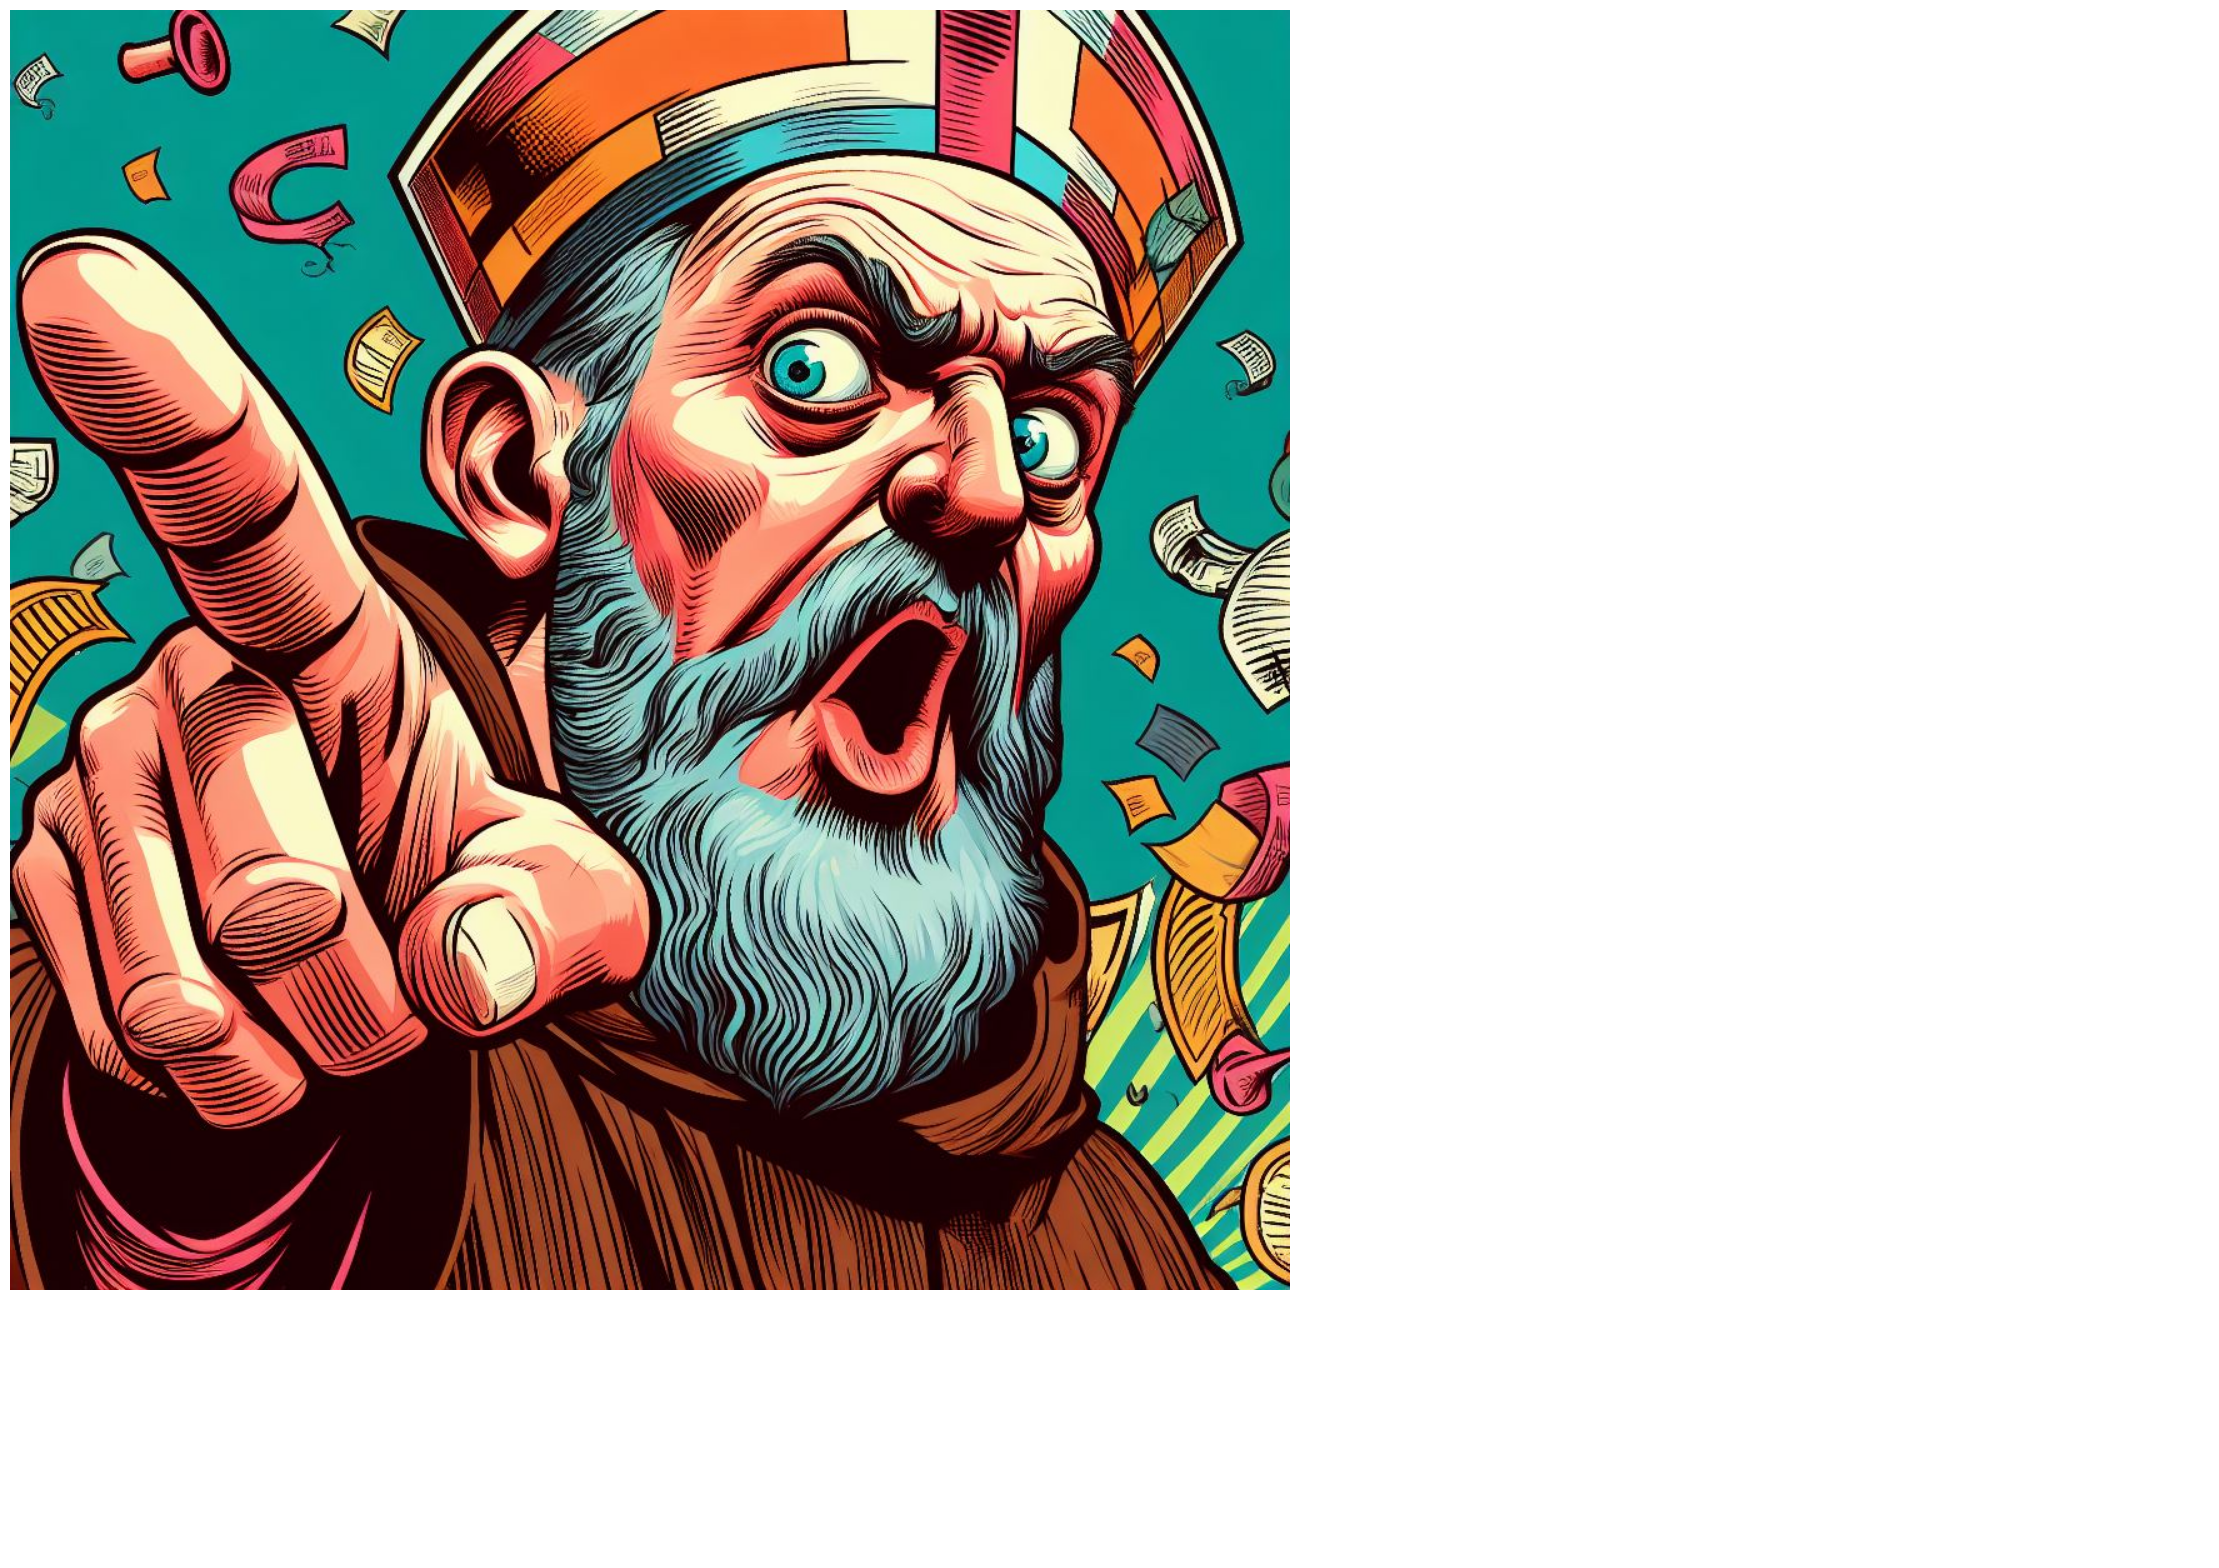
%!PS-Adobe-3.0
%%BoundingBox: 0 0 2219 1568
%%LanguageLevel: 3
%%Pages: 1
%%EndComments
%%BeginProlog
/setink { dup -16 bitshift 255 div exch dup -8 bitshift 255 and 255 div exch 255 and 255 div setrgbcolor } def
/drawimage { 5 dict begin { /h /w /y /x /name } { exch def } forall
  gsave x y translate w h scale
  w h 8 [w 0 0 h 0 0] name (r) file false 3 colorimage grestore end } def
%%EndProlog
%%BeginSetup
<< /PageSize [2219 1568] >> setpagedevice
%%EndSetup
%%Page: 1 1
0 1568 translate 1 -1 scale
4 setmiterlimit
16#FFFFFF setink
0 0 2219 1568 rectfill
(img1.raw) 10 10 1280 1280 drawimage
showpage
%%EOF
